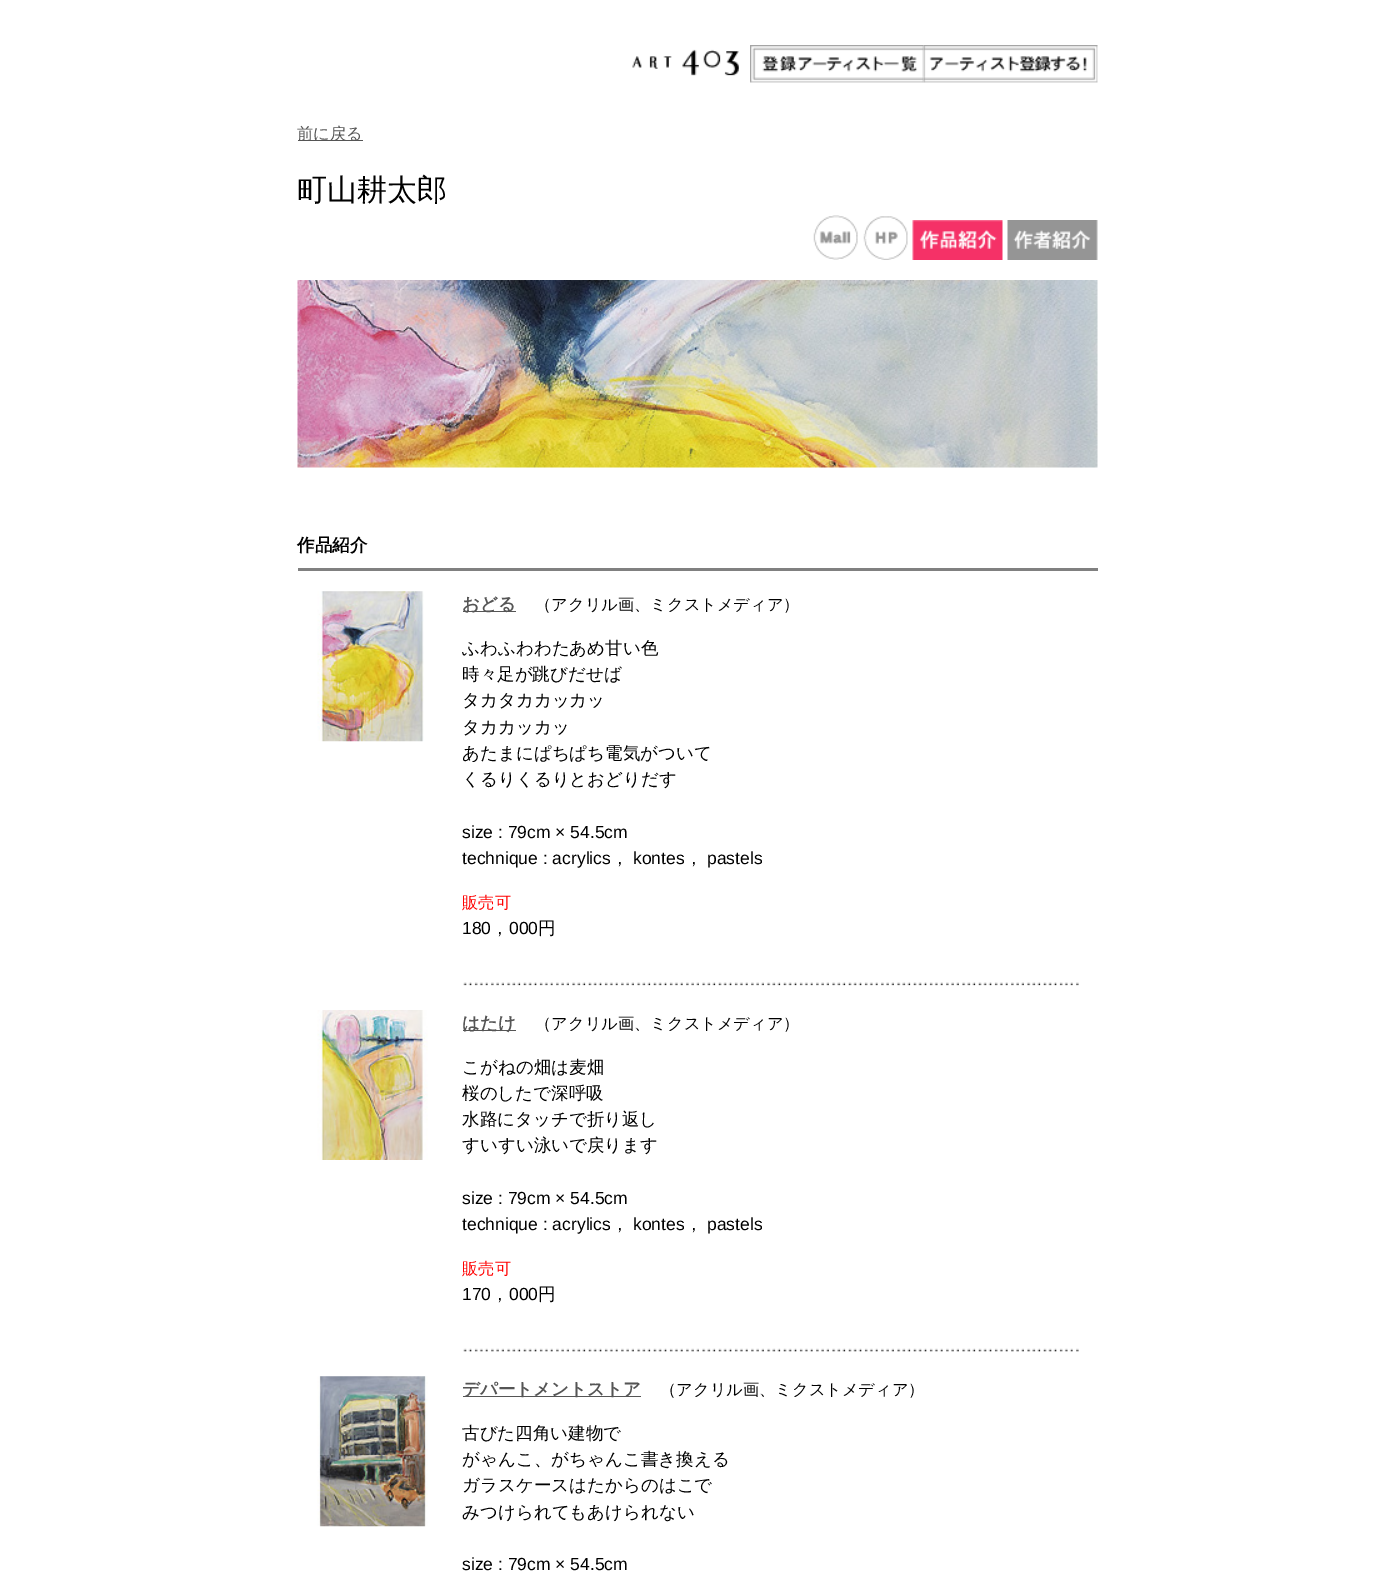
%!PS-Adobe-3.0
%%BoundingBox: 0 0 1393 1578
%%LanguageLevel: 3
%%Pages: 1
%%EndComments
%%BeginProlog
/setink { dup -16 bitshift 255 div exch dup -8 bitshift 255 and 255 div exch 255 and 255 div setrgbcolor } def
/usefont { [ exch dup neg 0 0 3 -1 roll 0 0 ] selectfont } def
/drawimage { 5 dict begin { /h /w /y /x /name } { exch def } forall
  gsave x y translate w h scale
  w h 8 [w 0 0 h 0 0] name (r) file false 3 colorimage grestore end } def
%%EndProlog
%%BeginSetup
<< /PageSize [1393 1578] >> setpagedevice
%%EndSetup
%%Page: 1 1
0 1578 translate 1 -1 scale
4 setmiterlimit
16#FFFFFF setink
0 0 1393 1578 rectfill
(img1.raw) 632 49 107 27 drawimage
(img2.raw) 750 45 174 38 drawimage
(img3.raw) 923 45 175 38 drawimage
16#555555 setink
298 140 65 1 rectfill
/WenQuanYiZenHei-Medium 16.25 usefont
297 139 moveto (前に戻る) show
/WenQuanYiZenHei-Medium 30 usefont
16#000000 setink
297 200 moveto (町山耕太郎) show
(img4.raw) 813 215 45 45 drawimage
(img5.raw) 863 216 45 44 drawimage
(img6.raw) 912 220 91 40 drawimage
(img7.raw) 1007 220 91 40 drawimage
(img8.raw) 297 280 801 188 drawimage
/WenQuanYiZenHei-Bold 17.5 usefont
297 551 moveto (作品紹介) show
16#808080 setink
298 568 800 3 rectfill
(img9.raw) 317 591 107 151 drawimage
16#555555 setink
463 611 53 1 rectfill
462 610 moveto (おどる) show
/WenQuanYiZenHei-Medium 16.25 usefont
16#000000 setink
535 610 moveto (（アクリル画、ミクストメディア）) show
/WenQuanYiZenHei-Medium 17.5 usefont
[
    [(ふわふわわたあめ甘い色) 462 654]
    [(時々足が跳びだせば) 462 680]
    [(タカタカカッカッ) 462 706]
    [(タカカッカッ) 462 733]
    [(あたまにぱちぱち電気がついて) 462 759]
    [(くるりくるりとおどりだす) 462 785]
] { aload pop moveto show } forall
/LiberationSans-Regular 17.5 usefont
462 838 moveto (size : 79cm × 54.5cm) show
462 864 moveto (technique : acrylics) show
/WenQuanYiZenHei-Medium 17.5 usefont
611 864 moveto (，) show
/LiberationSans-Regular 17.5 usefont
633 864 moveto (kontes) show
/WenQuanYiZenHei-Medium 17.5 usefont
685 864 moveto (，) show
/LiberationSans-Regular 17.5 usefont
707 864 moveto (pastels) show
/WenQuanYiZenHei-Medium 16.25 usefont
16#FF0000 setink
462 908 moveto (販売可) show
/LiberationSans-Regular 17.5 usefont
16#000000 setink
462 934 moveto (180) show
/WenQuanYiZenHei-Medium 17.5 usefont
491 934 moveto (，) show
/LiberationSans-Regular 17.5 usefont
509 934 moveto (000) show
/WenQuanYiZenHei-Medium 17.5 usefont
538 934 moveto (円) show
(img10.raw) 463 982 616 4 drawimage
(img11.raw) 317 1010 111 150 drawimage
16#555555 setink
463 1030 53 1 rectfill
/WenQuanYiZenHei-Bold 17.5 usefont
462 1029 moveto (はたけ) show
/WenQuanYiZenHei-Medium 16.25 usefont
16#000000 setink
535 1029 moveto (（アクリル画、ミクストメディア）) show
/WenQuanYiZenHei-Medium 17.5 usefont
[
    [(こがねの畑は麦畑) 462 1073]
    [(桜のしたで深呼吸) 462 1099]
    [(水路にタッチで折り返し) 462 1125]
    [(すいすい泳いで戻ります) 462 1151]
] { aload pop moveto show } forall
/LiberationSans-Regular 17.5 usefont
462 1204 moveto (size : 79cm × 54.5cm) show
462 1230 moveto (technique : acrylics) show
/WenQuanYiZenHei-Medium 17.5 usefont
611 1230 moveto (，) show
/LiberationSans-Regular 17.5 usefont
633 1230 moveto (kontes) show
/WenQuanYiZenHei-Medium 17.5 usefont
685 1230 moveto (，) show
/LiberationSans-Regular 17.5 usefont
707 1230 moveto (pastels) show
/WenQuanYiZenHei-Medium 16.25 usefont
16#FF0000 setink
462 1274 moveto (販売可) show
/LiberationSans-Regular 17.5 usefont
16#000000 setink
462 1300 moveto (170) show
/WenQuanYiZenHei-Medium 17.5 usefont
491 1300 moveto (，) show
/LiberationSans-Regular 17.5 usefont
509 1300 moveto (000) show
/WenQuanYiZenHei-Medium 17.5 usefont
538 1300 moveto (円) show
(img12.raw) 463 1348 616 4 drawimage
(img13.raw) 317 1376 111 151 drawimage
16#555555 setink
463 1396 178 1 rectfill
/WenQuanYiZenHei-Bold 17.5 usefont
462 1395 moveto (デパートメントストア) show
/WenQuanYiZenHei-Medium 16.25 usefont
16#000000 setink
660 1395 moveto (（アクリル画、ミクストメディア）) show
/WenQuanYiZenHei-Medium 17.5 usefont
[
    [(古びた四角い建物で) 462 1439]
    [(がゃんこ、がちゃんこ書き換える) 462 1465]
    [(ガラスケースはたからのはこで) 462 1491]
    [(みつけられてもあけられない) 462 1518]
] { aload pop moveto show } forall
/LiberationSans-Regular 17.5 usefont
462 1570 moveto (size : 79cm × 54.5cm) show
showpage
%%EOF
